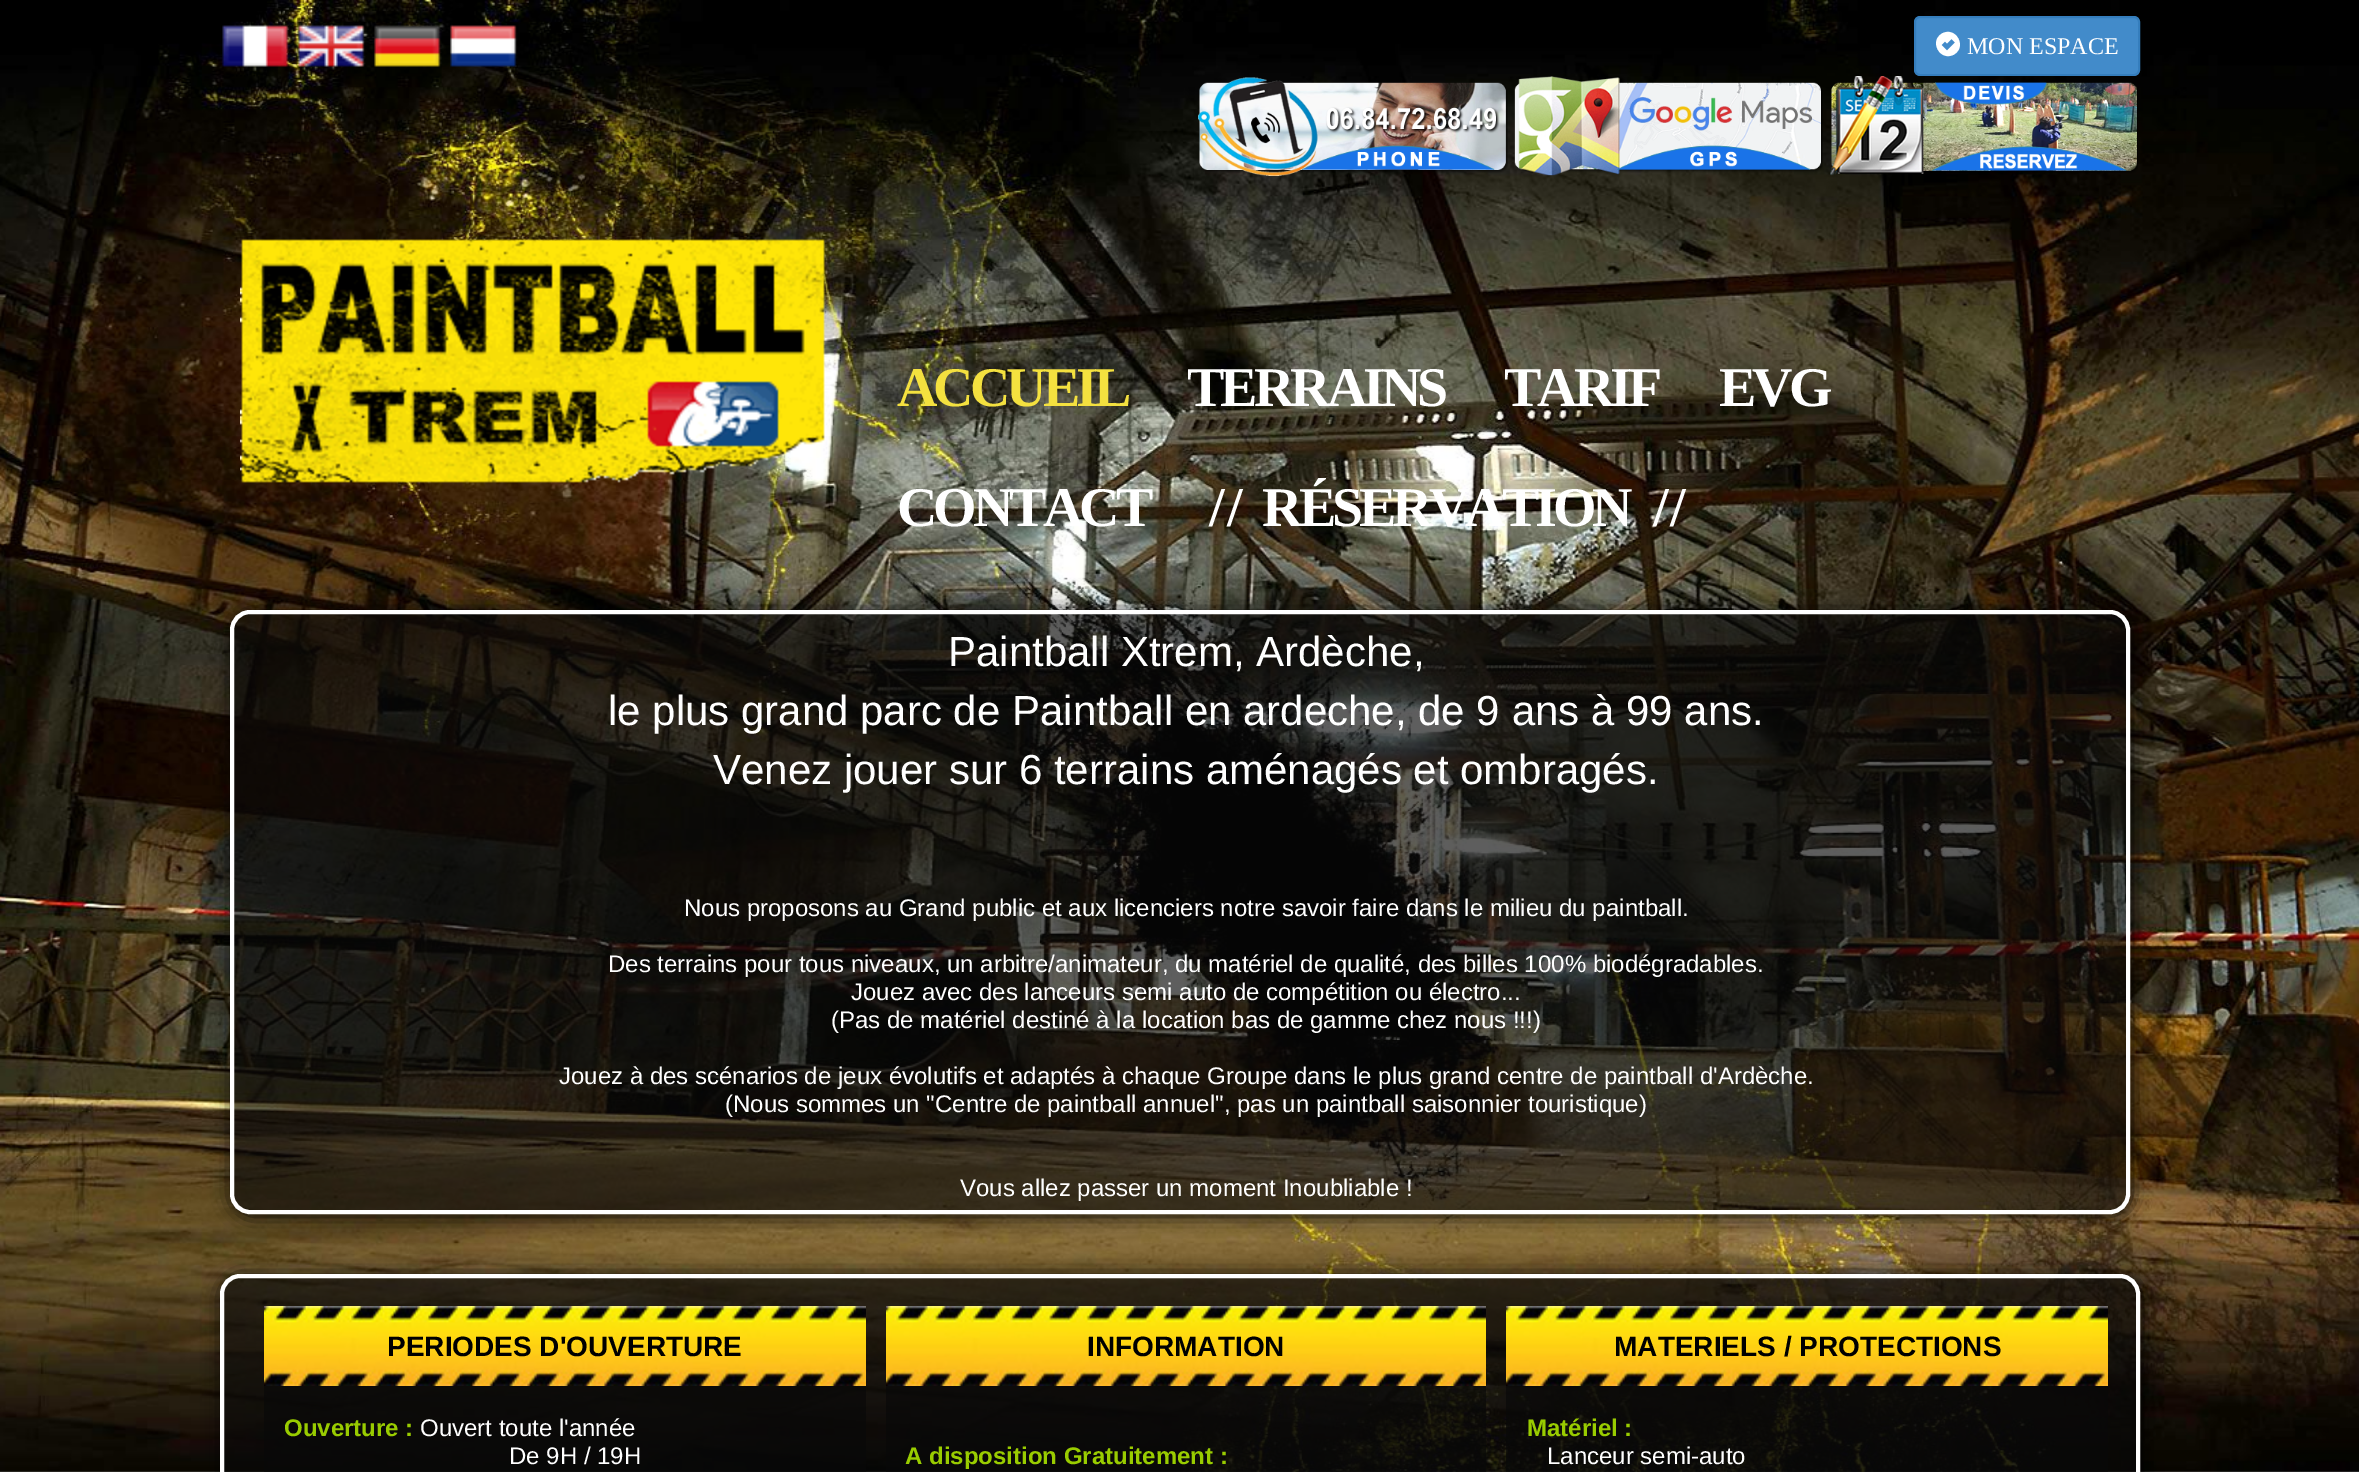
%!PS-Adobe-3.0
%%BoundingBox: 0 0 2359 1472
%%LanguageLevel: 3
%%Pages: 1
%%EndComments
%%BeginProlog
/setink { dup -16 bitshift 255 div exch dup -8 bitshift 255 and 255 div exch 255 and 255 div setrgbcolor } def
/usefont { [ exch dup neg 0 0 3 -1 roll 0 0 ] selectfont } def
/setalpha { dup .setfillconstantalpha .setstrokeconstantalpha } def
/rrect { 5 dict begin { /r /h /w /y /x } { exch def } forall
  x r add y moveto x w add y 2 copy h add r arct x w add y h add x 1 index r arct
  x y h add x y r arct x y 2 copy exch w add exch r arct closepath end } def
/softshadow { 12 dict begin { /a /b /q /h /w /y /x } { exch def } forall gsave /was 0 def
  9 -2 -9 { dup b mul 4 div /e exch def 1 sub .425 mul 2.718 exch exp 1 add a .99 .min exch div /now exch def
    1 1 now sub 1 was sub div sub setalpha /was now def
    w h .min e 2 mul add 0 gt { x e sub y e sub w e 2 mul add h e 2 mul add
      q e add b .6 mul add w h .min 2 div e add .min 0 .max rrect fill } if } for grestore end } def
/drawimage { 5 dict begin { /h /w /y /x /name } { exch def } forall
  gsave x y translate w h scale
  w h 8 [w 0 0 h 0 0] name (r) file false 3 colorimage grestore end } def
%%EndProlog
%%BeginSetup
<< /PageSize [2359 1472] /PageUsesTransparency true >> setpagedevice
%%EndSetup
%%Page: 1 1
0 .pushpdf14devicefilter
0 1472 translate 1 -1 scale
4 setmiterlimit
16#FFFFFF setink
0 0 2359 1472 rectfill
(img1.raw) 0 0 2359 1472 drawimage
(img2.raw) 222 25 67 42 drawimage
(img3.raw) 298 25 67 42 drawimage
(img4.raw) 374 25 67 42 drawimage
(img5.raw) 450 25 67 42 drawimage
16#428BCA setink
1915 17 224 58 5 rrect gsave fill grestore
16#357EBD setink
2 setlinewidth
stroke
16#FFFFFF setink
1942 33.5 moveto 1955.5 26 1967.5 46.5 1954 54.5 curveto 1940.5 62 1928.5 41.5 1942 33.5 curveto closepath 1947 43.5 moveto 1945 41.5 lineto 1941.5 45 lineto 1947 50.5 lineto 1955 42.5 lineto 1951.5 39 lineto closepath fill
/LiberationSerif-Regular 24 usefont
1967 54 moveto (MON ESPACE) show
(img6.raw) 1198 77 310 99 drawimage
(img7.raw) 1514 76 309 100 drawimage
(img8.raw) 1830 76 308 100 drawimage
(img9.raw) 240 239 585 244 drawimage
/LiberationSerif-Bold 56 usefont
16#F4E13F setink
897 406 moveto -4 0 (ACCUEIL) ashow
16#FFFFFF setink
1187 406 moveto -4 0 (TERRAINS) ashow
1504 406 moveto -4 0 (TARIF) ashow
1719 406 moveto -4 0 (EVG) ashow
897 526 moveto -4 0 (CONTACT) ashow
1209 526 moveto -4 0 32 -4 0 (/ / RÉSERVATION / /) awidthshow
gsave
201 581 moveto 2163 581 lineto 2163 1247 lineto 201 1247 lineto closepath 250 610 moveto 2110 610 lineto 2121 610 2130 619 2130 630 curveto 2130 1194 lineto 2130 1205 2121 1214 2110 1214 curveto 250 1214 lineto 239 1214 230 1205 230 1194 curveto 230 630 lineto 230 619 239 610 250 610 curveto closepath eoclip newpath
16#000000 setink
232 612 1900 604 20 10 1 softshadow
grestore
(img10.raw) 230 610 1900 604 drawimage
4 setlinewidth
232 612 1896 600 18 rrect stroke
/LiberationSans-Regular 42 usefont
[
    [(Paintball Xtrem, Ardèche,) 948 666]
    [(le plus grand parc de Paintball en ardeche, de 9 ans à 99 ans.) 608 725]
    [(Venez jouer sur 6 terrains aménagés et ombragés.) 713 784]
] { aload pop moveto show } forall
/LiberationSans-Regular 24 usefont
[
    [(Nous proposons au Grand public et aux licenciers notre savoir faire dans le milieu du paintball.) 684 916]
    [(Des terrains pour tous niveaux, un arbitre/animateur, du matériel de qualité, des billes 100% biodégradables.) 608 972]
    [(Jouez avec des lanceurs semi auto de compétition ou électro...) 851 1000]
    [(\(Pas de matériel destiné à la location bas de gamme chez nous !!!\)) 831 1028]
    [(Jouez à des scénarios de jeux évolutifs et adaptés à chaque Groupe dans le plus grand centre de paintball d'Ardèche.) 559 1084]
    [(\(Nous sommes un "Centre de paintball annuel", pas un paintball saisonnier touristique\)) 725 1112]
    [(Vous allez passer un moment Inoubliable !) 960 1196]
] { aload pop moveto show } forall
gsave
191 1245 moveto 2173 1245 lineto 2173 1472 lineto 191 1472 lineto closepath 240 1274 moveto 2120 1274 lineto 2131 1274 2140 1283 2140 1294 curveto 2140 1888 lineto 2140 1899 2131 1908 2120 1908 curveto 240 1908 lineto 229 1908 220 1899 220 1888 curveto 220 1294 lineto 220 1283 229 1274 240 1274 curveto closepath eoclip newpath
16#000000 setink
222 1276 1920 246 20 10 1 softshadow
grestore
(img11.raw) 220 1274 1920 198 drawimage
222 1276 1916 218 18 rrect stroke
(img12.raw) 264 1306 602 80 drawimage
/LiberationSans-Bold 28 usefont
16#000000 setink
387 1356 moveto (PERIODES D'OUVERTURE) show
0.65 setalpha
16#080808 setink
264 1386 602 86 rectfill
/LiberationSans-Bold 24 usefont
1 setalpha
16#99CC00 setink
284 1436 moveto (Ouverture :) show
/LiberationSans-Regular 24 usefont
16#FFFFFF setink
420 1436 moveto (Ouvert toute l'année) show
509 1464 moveto (De 9H / 19H) show
(img13.raw) 886 1306 600 80 drawimage
/LiberationSans-Bold 28 usefont
16#000000 setink
1087 1356 moveto (INFORMATION) show
0.65 setalpha
16#080808 setink
886 1386 600 86 rectfill
/LiberationSans-Bold 24 usefont
1 setalpha
16#99CC00 setink
905 1464 moveto (A disposition Gratuitement :) show
(img12.raw) 1506 1306 602 80 drawimage
/LiberationSans-Bold 28 usefont
16#000000 setink
1614 1356 moveto (MATERIELS / PROTECTIONS) show
0.65 setalpha
16#080808 setink
1506 1386 602 86 rectfill
/LiberationSans-Bold 24 usefont
1 setalpha
16#99CC00 setink
1527 1436 moveto (Matériel :) show
/LiberationSans-Regular 24 usefont
16#FFFFFF setink
1547 1464 moveto (Lanceur semi-auto) show
.poppdf14devicefilter showpage
%%EOF
